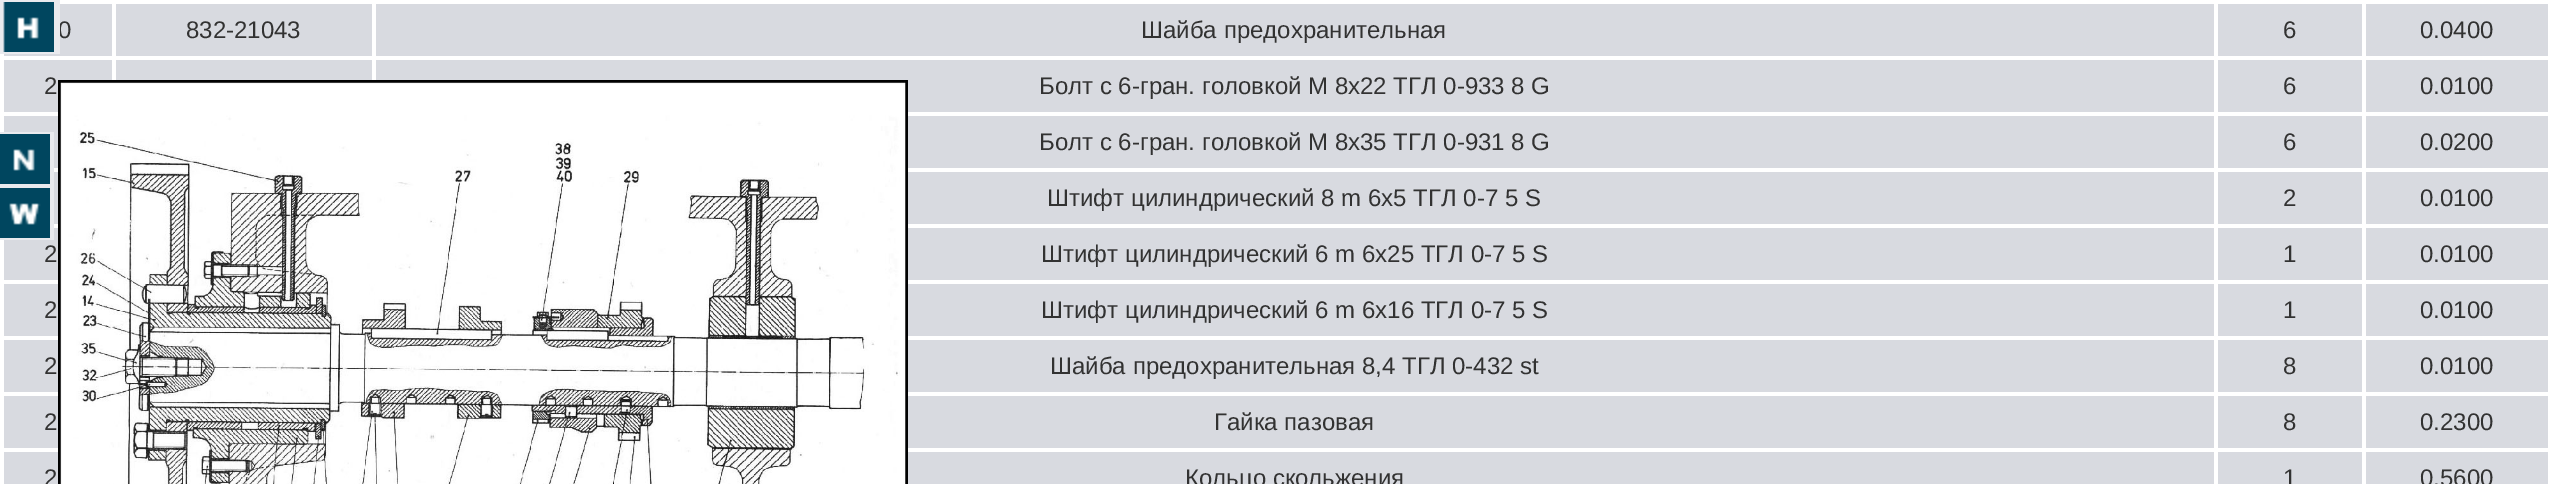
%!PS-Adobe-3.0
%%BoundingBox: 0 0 2552 484
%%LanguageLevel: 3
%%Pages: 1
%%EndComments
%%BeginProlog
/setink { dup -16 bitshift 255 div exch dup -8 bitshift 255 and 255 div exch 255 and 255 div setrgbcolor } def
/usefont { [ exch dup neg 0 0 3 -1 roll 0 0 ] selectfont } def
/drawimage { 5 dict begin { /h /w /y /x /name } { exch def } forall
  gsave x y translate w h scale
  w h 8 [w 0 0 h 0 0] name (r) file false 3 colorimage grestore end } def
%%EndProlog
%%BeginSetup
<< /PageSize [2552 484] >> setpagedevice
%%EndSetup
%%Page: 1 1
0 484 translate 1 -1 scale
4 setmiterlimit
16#D8DAE0 setink
0 0 2552 484 rectfill
/LiberationSans-Regular 24 usefont
16#323232 setink
58 38 moveto (0) show
16#E9EAEE setink
0 0 60 54 rectfill
(img1.raw) 3 2 51 50 drawimage
[
    [2362 0 190 4 16#FFFFFF]
    [2362 56 190 4 16#FFFFFF]
    [2362 112 190 4 16#FFFFFF]
    [2362 168 190 4 16#FFFFFF]
    [2362 224 190 4 16#FFFFFF]
    [2362 280 190 4 16#FFFFFF]
    [2362 336 190 4 16#FFFFFF]
    [2362 392 190 4 16#FFFFFF]
    [2362 448 190 4 16#FFFFFF]
    [2362 448 4 36 16#FFFFFF]
    [2214 448 152 4 16#FFFFFF]
    [2362 392 4 60 16#FFFFFF]
    [2214 392 152 4 16#FFFFFF]
    [2362 336 4 60 16#FFFFFF]
    [2214 336 152 4 16#FFFFFF]
    [2362 280 4 60 16#FFFFFF]
    [2214 280 152 4 16#FFFFFF]
    [2362 224 4 60 16#FFFFFF]
    [2214 224 152 4 16#FFFFFF]
    [2362 168 4 60 16#FFFFFF]
    [2214 168 152 4 16#FFFFFF]
    [2362 112 4 60 16#FFFFFF]
    [2214 112 152 4 16#FFFFFF]
    [2362 56 4 60 16#FFFFFF]
    [2214 56 152 4 16#FFFFFF]
    [2362 0 4 60 16#FFFFFF]
    [2214 0 152 4 16#FFFFFF]
    [2214 448 4 36 16#FFFFFF]
    [908 448 1310 4 16#FFFFFF]
    [2214 392 4 60 16#FFFFFF]
    [908 392 1310 4 16#FFFFFF]
    [2214 336 4 60 16#FFFFFF]
    [908 336 1310 4 16#FFFFFF]
    [2214 280 4 60 16#FFFFFF]
    [908 280 1310 4 16#FFFFFF]
    [2214 224 4 60 16#FFFFFF]
    [908 224 1310 4 16#FFFFFF]
    [2214 168 4 60 16#FFFFFF]
    [908 168 1310 4 16#FFFFFF]
    [2214 112 4 60 16#FFFFFF]
    [908 112 1310 4 16#FFFFFF]
    [2214 56 4 60 16#FFFFFF]
    [372 56 1846 4 16#FFFFFF]
    [2214 0 4 60 16#FFFFFF]
    [372 0 1846 4 16#FFFFFF]
    [372 56 4 24 16#FFFFFF]
    [112 56 264 4 16#FFFFFF]
    [372 0 4 60 16#FFFFFF]
    [112 0 264 4 16#FFFFFF]
    [112 56 4 24 16#FFFFFF]
    [0 56 116 4 16#FFFFFF]
    [112 0 4 60 16#FFFFFF]
    [60 0 56 4 16#FFFFFF]
] { aload pop setink rectfill } forall
16#323232 setink
[
    [(832-21043) 186 38]
    [(Шайба предохранительная) 1141 38]
    [(6) 2283 38]
] { aload pop moveto show } forall
[
    [2548 448 4 36 16#FFFFFF]
    [2548 392 4 60 16#FFFFFF]
    [2548 336 4 60 16#FFFFFF]
    [2548 280 4 60 16#FFFFFF]
    [2548 224 4 60 16#FFFFFF]
    [2548 168 4 60 16#FFFFFF]
    [2548 112 4 60 16#FFFFFF]
    [2548 56 4 60 16#FFFFFF]
    [2548 0 4 60 16#FFFFFF]
] { aload pop setink rectfill } forall
16#323232 setink
2420 38 moveto (0.0400) show
[
    [0 112 58 4 16#FFFFFF]
    [0 112 4 20 16#FFFFFF]
    [0 54 4 62 16#FFFFFF]
] { aload pop setink rectfill } forall
16#323232 setink
[
    [(2) 44 94]
    [(Болт с 6-гран. головкой М 8x22 TГЛ 0-933 8 G) 1039 94]
    [(6) 2283 94]
    [(0.0100) 2420 94]
    [(Болт с 6-гран. головкой М 8x35 ТГЛ 0-931 8 G) 1039 150]
    [(6) 2283 150]
    [(0.0200) 2420 150]
] { aload pop moveto show } forall
16#FFFFFF setink
54 168 4 4 rectfill
16#323232 setink
[
    [(Штифт цилиндрический 8 m 6х5 ТГЛ 0-7 5 S) 1047 206]
    [(2) 2283 206]
    [(0.0100) 2420 206]
] { aload pop moveto show } forall
16#FFFFFF setink
54 224 4 4 rectfill
16#323232 setink
[
    [(2) 44 262]
    [(Штифт цилиндрический 6 m 6х25 ТГЛ 0-7 5 S) 1041 262]
    [(1) 2283 262]
    [(0.0100) 2420 262]
] { aload pop moveto show } forall
[
    [0 280 58 4 16#FFFFFF]
    [0 336 58 4 16#FFFFFF]
    [0 392 58 4 16#FFFFFF]
    [0 448 58 4 16#FFFFFF]
    [0 448 4 36 16#FFFFFF]
    [0 392 4 60 16#FFFFFF]
    [0 336 4 60 16#FFFFFF]
    [0 240 4 100 16#FFFFFF]
] { aload pop setink rectfill } forall
16#323232 setink
[
    [(2) 44 318]
    [(Штифт цилиндрический 6 m 6x16 ТГЛ 0-7 5 S) 1041 318]
    [(1) 2283 318]
    [(0.0100) 2420 318]
    [(2) 44 374]
    [(Шайба предохранительная 8,4 ТГЛ 0-432 st) 1050 374]
    [(8) 2283 374]
    [(0.0100) 2420 374]
    [(2) 44 430]
    [(Гайка пазовая) 1214 430]
    [(8) 2283 430]
    [(0.2300) 2420 430]
    [(2) 44 486]
    [(Кольцо скольжения) 1185 486]
    [(1) 2283 486]
    [(0.5600) 2420 486]
] { aload pop moveto show } forall
16#E9EAEE setink
0 132 54 108 rectfill
(img2.raw) 0 134 50 50 drawimage
(img3.raw) 0 188 50 50 drawimage
(img4.raw) 58 80 850 404 drawimage
showpage
%%EOF
